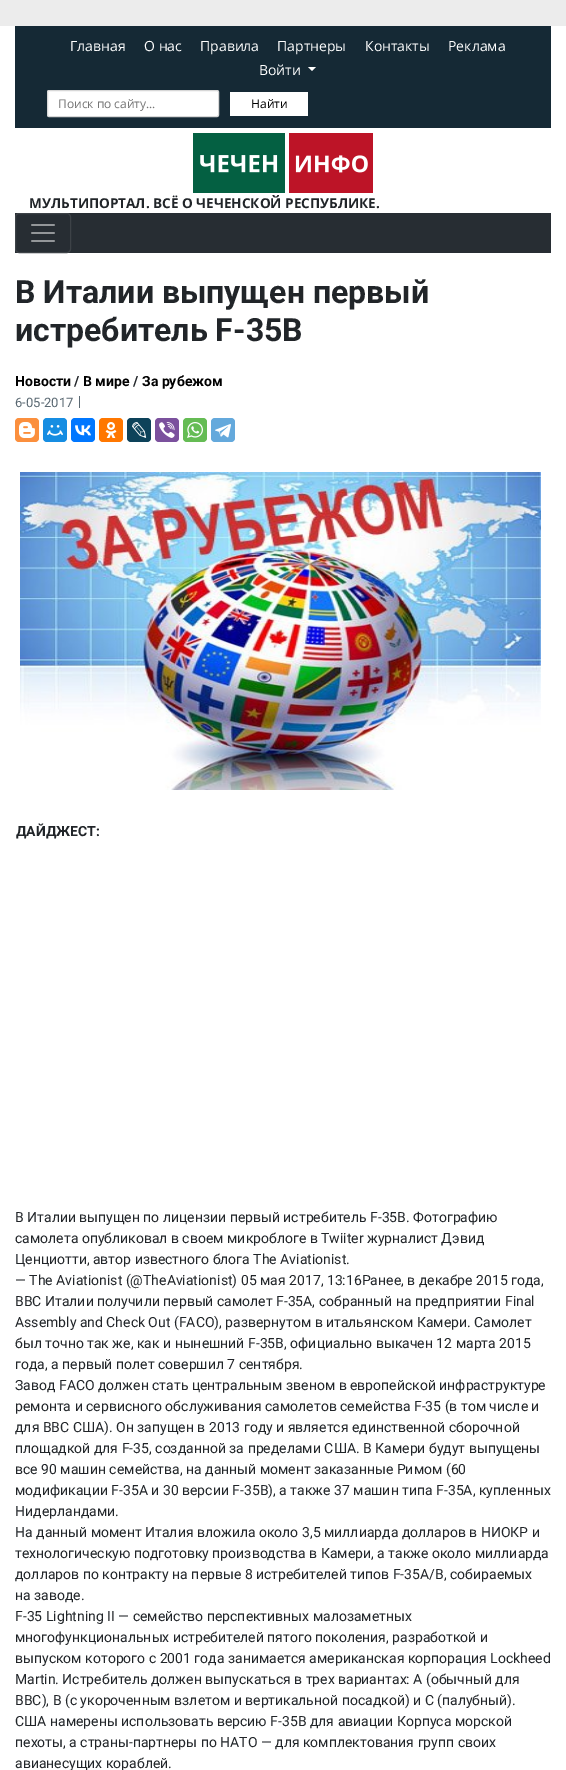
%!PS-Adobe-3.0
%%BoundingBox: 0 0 566 1770
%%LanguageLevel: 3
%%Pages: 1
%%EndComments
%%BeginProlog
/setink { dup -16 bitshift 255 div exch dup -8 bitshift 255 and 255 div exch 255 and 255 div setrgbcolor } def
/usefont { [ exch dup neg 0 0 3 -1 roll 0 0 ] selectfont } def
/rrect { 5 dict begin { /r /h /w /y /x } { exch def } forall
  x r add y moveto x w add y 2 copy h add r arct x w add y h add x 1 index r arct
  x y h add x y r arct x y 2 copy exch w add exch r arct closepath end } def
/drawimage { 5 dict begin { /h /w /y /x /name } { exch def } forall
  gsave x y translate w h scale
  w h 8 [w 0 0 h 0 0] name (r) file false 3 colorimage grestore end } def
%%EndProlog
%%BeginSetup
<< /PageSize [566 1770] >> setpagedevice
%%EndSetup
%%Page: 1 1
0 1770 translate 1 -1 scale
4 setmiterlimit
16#ECECEC setink
0 0 566 1770 rectfill
16#FFFFFF setink
0 26 566 1744 rectfill
16#152935 setink
15 26 536 102 rectfill
/OpenSans-Regular 14 usefont
16#FFFFFF setink
[
    [(Главная) 70 51]
    [(О нас) 144 51]
    [(Правила) 200 51]
    [(Партнеры) 277 51]
    [(Контакты) 365 51]
    [(Реклама) 448 51]
    [(Войти) 259 75]
] { aload pop moveto show } forall
308 67 moveto 316 67 lineto 312 71 lineto closepath fill
47.5 90.5 171 26 1.5 rrect gsave fill grestore
16#D7D7D7 setink
stroke
/OpenSans-Regular 12 usefont
16#757575 setink
58 108 moveto (Поиск по сайту...) show
16#FFFFFF setink
230 92 78 24 rectfill
16#000000 setink
251 108 moveto (Найти) show
(img1.raw) 193 133 180 60 drawimage
/OpenSans-Bold 13.6 usefont
16#212529 setink
29 208 moveto (МУЛЬТИПОРТАЛ. ВСЁ О ЧЕЧЕНСКОЙ РЕСПУБЛИКЕ.) show
16#272D33 setink
15 213 536 40 rectfill
16#3D4247 setink
15.5 213.5 55 39 3.5 rrect stroke
(img2.raw) 31 224 24 18 drawimage
/Roboto-Bold 32 usefont
16#212529 setink
15 303 moveto (В Италии выпущен первый) show
15 341 moveto (истребитель F-35B) show
/Roboto-Bold 14 usefont
16#000000 setink
15 386 moveto (Новости) show
16#212529 setink
74 386 moveto (/) show
16#000000 setink
83 386 moveto (В мире) show
16#212529 setink
133 386 moveto (/) show
16#000000 setink
142 386 moveto (За рубежом) show
/Roboto-Regular 13 usefont
16#5A6872 setink
15 407 moveto (6-05-2017) show
79 396 1 12 rectfill
16#FB8F3D setink
15 418 24 24 4 rrect fill
(img3.raw) 19 422 16 16 drawimage
16#168DE2 setink
43 418 24 24 4 rrect fill
(img4.raw) 47 425 16 11 drawimage
16#0077FF setink
71 418 24 24 4 rrect fill
(img5.raw) 75 425 16 11 drawimage
16#FF7700 setink
99 418 24 24 4 rrect fill
(img6.raw) 105 422 12 16 drawimage
16#0D425A setink
127 418 24 24 4 rrect fill
(img7.raw) 132 422 15 16 drawimage
16#7B519D setink
155 418 24 24 4 rrect fill
(img8.raw) 159 422 16 16 drawimage
16#65BC54 setink
183 418 24 24 4 rrect fill
(img9.raw) 187 422 16 16 drawimage
16#64A9DC setink
211 418 24 24 4 rrect fill
(img10.raw) 215 424 16 14 drawimage
(img11.raw) 20 472 521 318 drawimage
/Roboto-Bold 14 usefont
16#212529 setink
16 836 moveto (ДАЙДЖЕСТ:) show
/Roboto-Regular 14 usefont
[
    [(В Италии выпущен по лицензии первый истребитель F-35B. Фотографию) 15 1222]
    [(самолета опубликовал в своем микроблоге в Twiiter журналист Дэвид) 15 1243]
    [(Ценциотти, автор известного блога The Aviationist.) 15 1264]
    [(— The Aviationist \(@TheAviationist\) 05 мая 2017, 13:16Ранее, в декабре 2015 года,) 15 1285]
    [(ВВС Италии получили первый самолет F-35A, собранный на предприятии Final) 15 1306]
    [(Assembly and Check Out \(FACO\), развернутом в итальянском Камери. Самолет) 15 1327]
    [(был точно так же, как и нынешний F-35B, официально выкачен 12 марта 2015) 15 1348]
    [(года, а первый полет совершил 7 сентября.) 15 1369]
    [(Завод FACO должен стать центральным звеном в европейской инфраструктуре) 15 1390]
    [(ремонта и сервисного обслуживания самолетов семейства F-35 \(в том числе и) 15 1411]
    [(для ВВС США\). Он запущен в 2013 году и является единственной сборочной) 15 1432]
    [(площадкой для F-35, созданной за пределами США. В Камери будут выпущены) 15 1453]
    [(все 90 машин семейства, на данный момент заказанные Римом \(60) 15 1474]
    [(модификации F-35A и 30 версии F-35B\), а также 37 машин типа F-35A, купленных) 15 1495]
    [(Нидерландами.) 15 1516]
    [(На данный момент Италия вложила около 3,5 миллиарда долларов в НИОКР и) 15 1537]
    [(технологическую подготовку производства в Камери, а также около миллиарда) 15 1558]
    [(долларов по контракту на первые 8 истребителей типов F-35A/B, собираемых) 15 1579]
    [(на заводе.) 15 1600]
    [(F-35 Lightning II — семейство перспективных малозаметных) 15 1621]
    [(многофункциональных истребителей пятого поколения, разработкой и) 15 1642]
    [(выпуском которого с 2001 года занимается американская корпорация Lockheed) 15 1663]
    [(Martin. Истребитель должен выпускаться в трех вариантах: A \(обычный для) 15 1684]
    [(ВВС\), B \(с укороченным взлетом и вертикальной посадкой\) и C \(палубный\).) 15 1705]
    [(США намерены использовать версию F-35B для авиации Корпуса морской) 15 1726]
    [(пехоты, а страны-партнеры по НАТО — для комплектования групп своих) 15 1747]
    [(авианесущих кораблей.) 15 1768]
] { aload pop moveto show } forall
showpage
%%EOF
